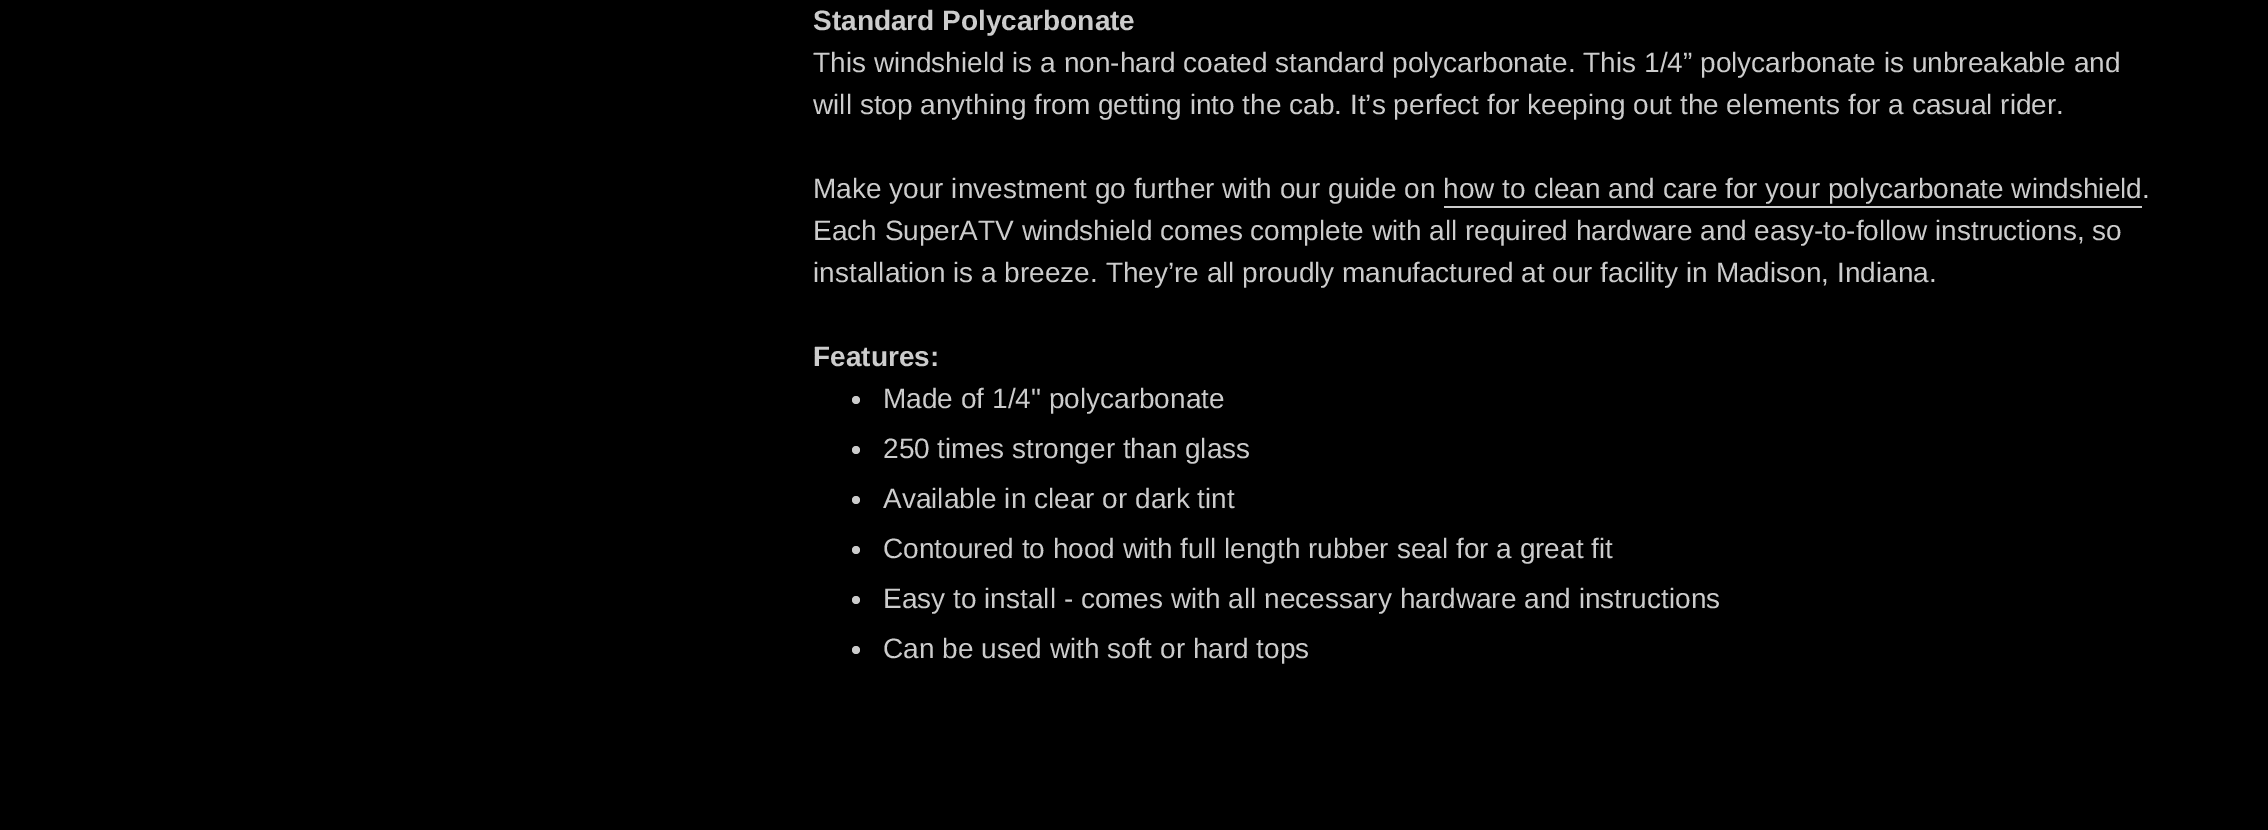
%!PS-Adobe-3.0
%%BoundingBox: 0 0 2268 830
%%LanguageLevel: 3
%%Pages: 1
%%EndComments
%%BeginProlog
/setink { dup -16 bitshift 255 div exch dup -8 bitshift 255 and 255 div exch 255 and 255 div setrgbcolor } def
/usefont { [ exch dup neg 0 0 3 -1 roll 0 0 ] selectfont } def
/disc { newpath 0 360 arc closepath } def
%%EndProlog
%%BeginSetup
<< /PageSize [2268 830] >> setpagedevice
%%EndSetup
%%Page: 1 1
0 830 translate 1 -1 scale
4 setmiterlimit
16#000000 setink
0 0 2268 830 rectfill
/LiberationSans-Bold 28 usefont
16#CCCCCC setink
813 30 moveto (Standard Polycarbonate) show
/LiberationSans-Regular 28 usefont
[
    [(This windshield is a non-hard coated standard polycarbonate. This 1/4” polycarbonate is unbreakable and) 813 72]
    [(will stop anything from getting into the cab. It’s perfect for keeping out the elements for a casual rider.) 813 114]
    [(Make your investment go further with our guide on how to clean and care for your polycarbonate windshield.) 813 198]
] { aload pop moveto show } forall
1444 206 698 2 rectfill
813 240 moveto (Each SuperATV windshield comes complete with all required hardware and easy-to-follow instructions, so) show
813 282 moveto (installation is a breeze. They’re all proudly manufactured at our facility in Madison, Indiana.) show
/LiberationSans-Bold 28 usefont
813 366 moveto (Features:) show
856 400 4 disc fill
/LiberationSans-Regular 28 usefont
883 408 moveto (Made of 1/4" polycarbonate) show
856 450 4 disc fill
883 458 moveto (250 times stronger than glass) show
856 500 4 disc fill
883 508 moveto (Available in clear or dark tint) show
856 550 4 disc fill
883 558 moveto (Contoured to hood with full length rubber seal for a great fit) show
856 600 4 disc fill
883 608 moveto (Easy to install - comes with all necessary hardware and instructions) show
856 650 4 disc fill
883 658 moveto (Can be used with soft or hard tops) show
showpage
%%EOF
